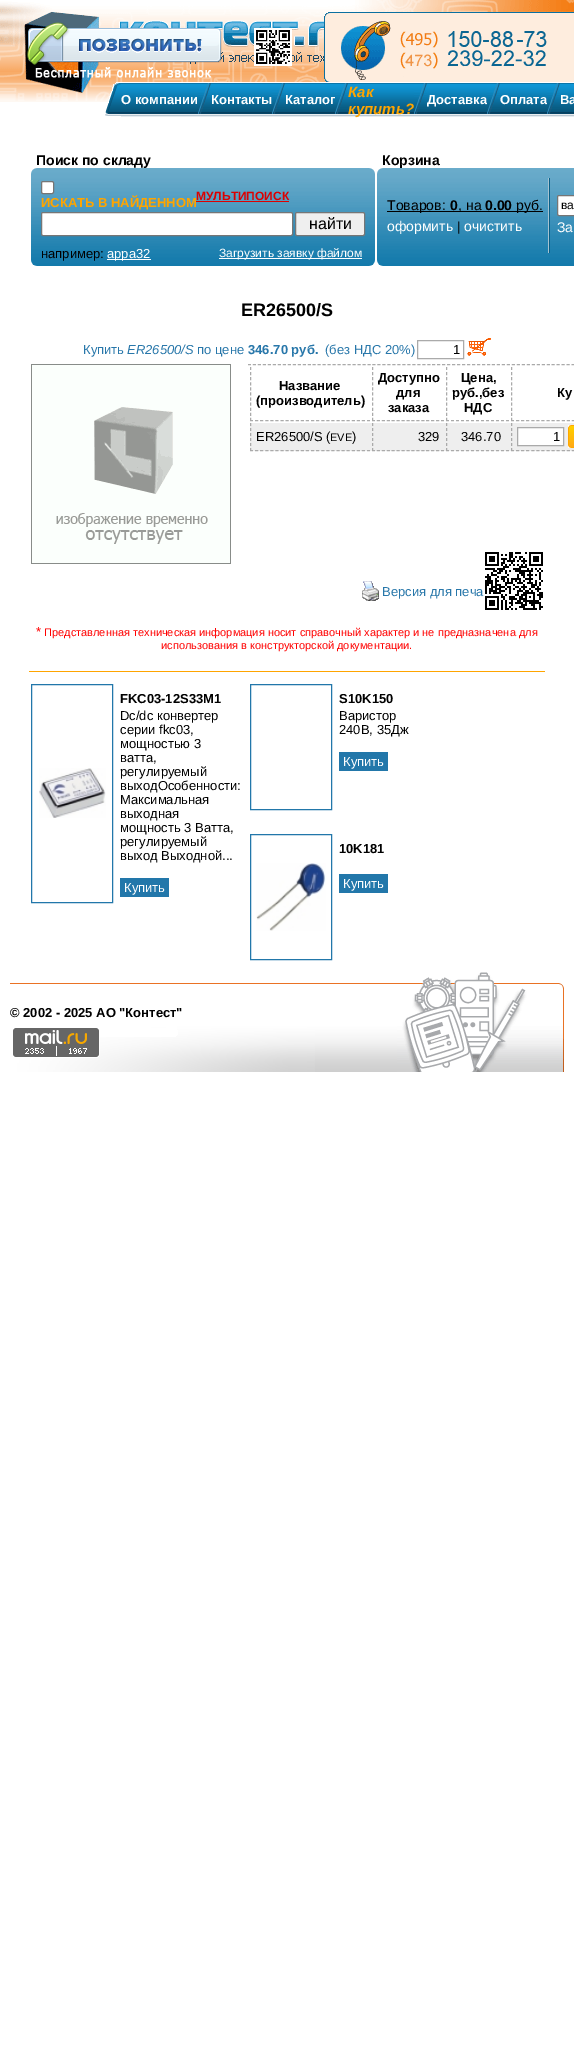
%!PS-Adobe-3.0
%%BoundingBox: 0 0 574 2059
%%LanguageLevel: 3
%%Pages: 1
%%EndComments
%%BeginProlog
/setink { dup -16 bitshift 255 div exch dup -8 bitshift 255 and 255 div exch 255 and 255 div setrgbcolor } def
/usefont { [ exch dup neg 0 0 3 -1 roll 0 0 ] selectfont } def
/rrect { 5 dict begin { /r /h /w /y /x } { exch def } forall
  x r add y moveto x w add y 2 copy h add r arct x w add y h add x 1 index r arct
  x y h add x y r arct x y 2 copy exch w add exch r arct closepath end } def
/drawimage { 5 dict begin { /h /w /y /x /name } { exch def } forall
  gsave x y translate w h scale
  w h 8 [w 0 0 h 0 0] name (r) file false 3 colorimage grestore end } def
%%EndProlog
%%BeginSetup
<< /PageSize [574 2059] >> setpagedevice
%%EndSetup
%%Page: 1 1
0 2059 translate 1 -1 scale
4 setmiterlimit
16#FFFFFF setink
0 0 574 2059 rectfill
(img1.raw) 0 0 574 114 drawimage
(img2.raw) 27 22 195 56 drawimage
(img3.raw) 254 28 38 38 drawimage
(img4.raw) 324 12 250 70 drawimage
(img5.raw) 105 82 16 34 drawimage
(img6.raw) 121 82 77 35 drawimage
/LiberationSans-Bold 13 usefont
121 104 moveto (О компании) show
(img7.raw) 198 82 13 35 drawimage
(img8.raw) 211 82 61 35 drawimage
211 104 moveto (Контакты) show
(img7.raw) 272 82 13 35 drawimage
(img9.raw) 285 82 50 35 drawimage
285 104 moveto (Каталог) show
(img7.raw) 335 82 13 35 drawimage
(img10.raw) 348 82 66 35 drawimage
/LiberationSans-BoldItalic 15 usefont
16#FFA500 setink
348 97 moveto (Как) show
348 114 moveto (купить?) show
(img7.raw) 414 82 13 35 drawimage
(img11.raw) 427 82 60 35 drawimage
/LiberationSans-Bold 13 usefont
16#FFFFFF setink
427 104 moveto (Доставка) show
(img7.raw) 487 82 13 35 drawimage
(img12.raw) 500 82 47 35 drawimage
500 104 moveto (Оплата) show
(img7.raw) 547 82 13 35 drawimage
(img13.raw) 560 82 14 35 drawimage
560 104 moveto (Ва) show
/LiberationSans-Bold 14 usefont
16#000000 setink
36 165 moveto (Поиск по складу) show
(img14.raw) 31 168 344 98 drawimage
16#FFFFFF setink
41.5 181.5 12 12 1.5 rrect gsave fill grestore
16#767676 setink
stroke
/LiberationSans-Bold 13 usefont
16#FFA500 setink
41 207 moveto (ИСКАТЬ В НАЙДЕННОМ) show
/LiberationSans-Bold 12 usefont
16#DD0000 setink
196 200 moveto (МУЛЬТИПОИСК) show
196 201 93 1 rectfill
16#FFFFFF setink
41.5 212.5 251 23 1.5 rrect gsave fill grestore
16#767676 setink
stroke
16#EFEFEF setink
295.5 212.5 69 23 1.5 rrect gsave fill grestore
16#767676 setink
stroke
/LiberationSans-Regular 16 usefont
16#000000 setink
309 229 moveto (найти) show
/LiberationSans-Regular 13 usefont
41 258 moveto (например:) show
16#FFFFFF setink
107 259 44 1 rectfill
107 258 moveto (appa32) show
219 258 143 1 rectfill
/LiberationSans-Regular 12 usefont
219 257 moveto (Загрузить заявку файлом) show
/LiberationSans-Bold 14 usefont
16#000000 setink
382 165 moveto (Корзина) show
(img15.raw) 377 168 197 98 drawimage
387 211 156 1 rectfill
/LiberationSans-Regular 14 usefont
387 210 moveto (Товаров:) show
/LiberationSans-Bold 14 usefont
450 210 moveto (0) show
/LiberationSans-Regular 14 usefont
458 210 moveto (, на) show
/LiberationSans-Bold 14 usefont
485 210 moveto (0.00) show
/LiberationSans-Regular 14 usefont
516 210 moveto (руб.) show
16#FFFFFF setink
387 231 moveto (оформить) show
/LiberationSans-Regular 13 usefont
16#000000 setink
457 231 moveto (|) show
/LiberationSans-Regular 14 usefont
16#FFFFFF setink
464 231 moveto (очистить) show
(img16.raw) 548 178 2 75 drawimage
557.5 195.5 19 20 1.5 rrect gsave fill grestore
16#767676 setink
stroke
/LiberationSans-Regular 12 usefont
16#000000 setink
561 209 moveto (ва) show
/LiberationSans-Regular 14 usefont
16#FFFFFF setink
557 232 moveto (За) show
/LiberationSans-Bold 18 usefont
16#000000 setink
241 316 moveto (ER26500/S) show
/LiberationSans-Regular 13 usefont
16#2877AA setink
83 354 moveto (Купить) show
/LiberationSans-Italic 13 usefont
127 354 moveto (ER26500/S) show
/LiberationSans-Regular 13 usefont
197 354 moveto (по цене) show
/LiberationSans-Bold 13 usefont
248 354 moveto (346.70 руб.) show
/LiberationSans-Regular 13 usefont
325 354 moveto (\(без НДС 20%\)) show
16#AAAAAA setink
417.5 340.5 46 18 rectstroke
16#000000 setink
453 354 moveto (1) show
(img17.raw) 467 338 24 18 drawimage
(img18.raw) 31 364 200 200 drawimage
16#AAAAAA setink
[3 1.98] 0 setdash
248 364.5 moveto 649 364.5 lineto stroke
[3 2.09] 0 setdash
250 420.5 moveto 370 420.5 lineto stroke
[3 2.1] 0 setdash
250.5 367 moveto 250.5 421 lineto stroke
/LiberationSans-Bold 13 usefont
16#000000 setink
279 390 moveto (Название) show
256 405 moveto (\(производитель\)) show
16#AAAAAA setink
[3 1.93] 0 setdash
372 420.5 moveto 444 420.5 lineto stroke
[3 2.1] 0 setdash
372.5 367 moveto 372.5 421 lineto stroke
16#000000 setink
[
    [(Доступно) 378 382]
    [(для) 396 397]
    [(заказа) 388 412]
] { aload pop moveto show } forall
16#AAAAAA setink
[3 2] 0 setdash
446 420.5 moveto 509 420.5 lineto stroke
[3 2.1] 0 setdash
446.5 367 moveto 446.5 421 lineto stroke
16#000000 setink
[
    [(Цена,) 461 382]
    [(руб.,без) 452 397]
    [(НДС) 464 412]
] { aload pop moveto show } forall
16#AAAAAA setink
[3 2.08] 0 setdash
511 420.5 moveto 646 420.5 lineto stroke
[3 2.1] 0 setdash
511.5 367 moveto 511.5 421 lineto stroke
16#000000 setink
557 397 moveto (Ку) show
16#EEEEEE setink
250 423 324 28 rectfill
16#AAAAAA setink
[3 2.09] 0 setdash
250 450.5 moveto 370 450.5 lineto stroke
[3 2] 0 setdash
250.5 423 moveto 250.5 451 lineto stroke
/LiberationSans-Regular 13 usefont
16#000000 setink
256 441 moveto (ER26500/S \() show
/LiberationSans-Regular 11 usefont
330 441 moveto (EVE) show
/LiberationSans-Regular 13 usefont
352 441 moveto (\)) show
16#AAAAAA setink
[3 1.93] 0 setdash
372 450.5 moveto 444 450.5 lineto stroke
[3 2] 0 setdash
372.5 423 moveto 372.5 451 lineto stroke
16#000000 setink
418 441 moveto (329) show
16#AAAAAA setink
446 450.5 moveto 509 450.5 lineto 446.5 423 moveto 446.5 451 lineto stroke
16#000000 setink
461 441 moveto (346.70) show
16#AAAAAA setink
[3 2.08] 0 setdash
511 450.5 moveto 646 450.5 lineto stroke
[3 2] 0 setdash
511.5 423 moveto 511.5 451 lineto stroke
16#FFFFFF setink
517.5 427.5 moveto 563.5 427.5 lineto 563.5 445.5 lineto 517.5 445.5 lineto closepath gsave fill grestore
16#AAAAAA setink
[] 0 setdash
stroke
16#000000 setink
553 441 moveto (1) show
(img19.raw) 568 425 6 23 drawimage
(img20.raw) 362 581 17 20 drawimage
16#2877AA setink
382 596 moveto (Версия для печа) show
(img21.raw) 485 552 58 58 drawimage
16#FF0000 setink
36 636 moveto (*) show
/LiberationSans-Regular 11 usefont
44 636 moveto (Представленная техническая информация носит справочный характер и не предназначена для) show
161 649 moveto (использования в конструкторской документации.) show
16#FFA500 setink
29 671 516 1 rectfill
16#2277AA setink
31.5 684.5 81 218 rectstroke
(img22.raw) 39 768 67 50 drawimage
/LiberationSans-Bold 13 usefont
16#000000 setink
120 703 moveto (FKC03-12S33M1) show
/LiberationSans-Regular 13 usefont
[
    [(Dc/dc конвертер) 120 720]
    [(серии fkc03,) 120 734]
    [(мощностью 3) 120 748]
    [(ватта,) 120 762]
    [(регулируемый) 120 776]
    [(выходОсобенности:) 120 790]
    [(Максимальная) 120 804]
    [(выходная) 120 818]
    [(мощность 3 Ватта,) 120 832]
    [(регулируемый) 120 846]
    [(выход Выходной...) 120 860]
] { aload pop moveto show } forall
16#2277AA setink
120 878 49 19 rectfill
16#FFFFFF setink
124 892 moveto (Купить) show
16#2277AA setink
250.5 684.5 81 125 rectstroke
/LiberationSans-Bold 13 usefont
16#000000 setink
339 703 moveto (S10K150) show
/LiberationSans-Regular 13 usefont
339 720 moveto (Варистор) show
339 734 moveto (240В, 35Дж) show
16#2277AA setink
339 752 49 19 rectfill
16#FFFFFF setink
343 766 moveto (Купить) show
16#2277AA setink
250.5 834.5 81 125 rectstroke
(img23.raw) 256 863 70 68 drawimage
/LiberationSans-Bold 13 usefont
16#000000 setink
339 853 moveto (10K181) show
16#2277AA setink
339 874 49 19 rectfill
/LiberationSans-Regular 13 usefont
16#FFFFFF setink
343 888 moveto (Купить) show
(img24.raw) 10 983 305 89 drawimage
/LiberationSans-Bold 13 usefont
16#000000 setink
10 1017 moveto (© 2002 - 2025 АО "Контест") show
(img25.raw) 13 1028 87 30 drawimage
(img26.raw) 315 983 82 89 drawimage
(img27.raw) 397 972 167 100 drawimage
showpage
%%EOF
